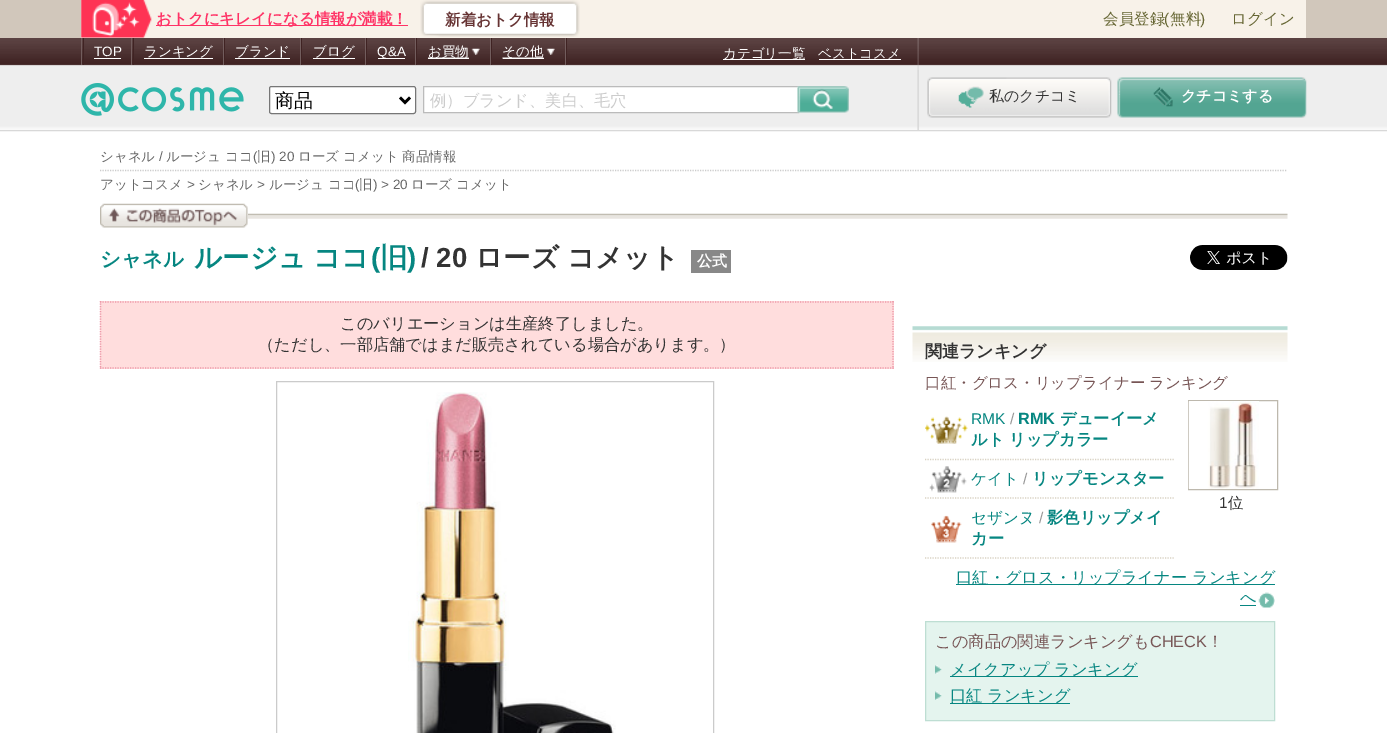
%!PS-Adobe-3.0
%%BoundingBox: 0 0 1387 733
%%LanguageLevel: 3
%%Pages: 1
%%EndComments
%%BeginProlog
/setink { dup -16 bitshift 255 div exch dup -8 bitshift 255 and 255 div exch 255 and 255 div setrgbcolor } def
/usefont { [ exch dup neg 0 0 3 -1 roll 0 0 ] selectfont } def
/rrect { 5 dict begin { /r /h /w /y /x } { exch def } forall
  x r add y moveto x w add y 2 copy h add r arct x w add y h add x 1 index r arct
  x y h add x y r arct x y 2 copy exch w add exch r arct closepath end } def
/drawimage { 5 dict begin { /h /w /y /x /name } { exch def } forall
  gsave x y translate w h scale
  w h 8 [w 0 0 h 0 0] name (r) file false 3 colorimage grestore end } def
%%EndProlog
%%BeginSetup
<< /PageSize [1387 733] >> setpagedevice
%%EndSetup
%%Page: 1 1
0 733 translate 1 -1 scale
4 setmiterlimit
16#FFFFFF setink
0 0 1387 733 rectfill
16#D1C7BB setink
0 0 1387 38 rectfill
16#F8F2E9 setink
81 0 1225 38 rectfill
(img1.raw) 81 0 71 38 drawimage
16#FF3366 setink
156 25 252 1 rectfill
/WenQuanYiZenHei-Bold 15.5 usefont
156 24 moveto (おトクにキレイになる情報が満載！) show
(img2.raw) 420 0 160 37 drawimage
16#663333 setink
445 25 moveto (新着おトク情報) show
/WenQuanYiZenHei-Medium 15.5 usefont
16#666633 setink
1103 24 moveto (会員登録) show
/LiberationSans-Regular 15.5 usefont
1164 24 moveto (\() show
/WenQuanYiZenHei-Medium 15.5 usefont
1170 24 moveto (無料) show
/LiberationSans-Regular 15.5 usefont
1200 24 moveto (\)) show
/WenQuanYiZenHei-Medium 15.5 usefont
1231 24 moveto (ログイン) show
(img3.raw) 0 38 1387 94 drawimage
(img4.raw) 917 38 2 92 drawimage
[
    [566 38 1 27 16#402323]
    [81 38 1 27 16#725D5D]
    [131 38 1 27 16#725D5D]
    [83 38 1 27 16#402323]
] { aload pop setink rectfill } forall
/LiberationSans-Regular 13.5 usefont
16#FFFFFF setink
94 56 moveto (TOP) show
[
    [94 58 27 1 16#FFFFFF]
    [223 38 1 27 16#725D5D]
    [133 38 1 27 16#402323]
] { aload pop setink rectfill } forall
/WenQuanYiZenHei-Medium 13.5 usefont
16#FFFFFF setink
144 56 moveto (ランキング) show
[
    [144 58 69 1 16#FFFFFF]
    [300 38 1 27 16#725D5D]
    [224 38 1 27 16#402323]
] { aload pop setink rectfill } forall
16#FFFFFF setink
235 56 moveto (ブランド) show
[
    [235 58 55 1 16#FFFFFF]
    [365 38 1 27 16#725D5D]
    [301 38 1 27 16#402323]
] { aload pop setink rectfill } forall
16#FFFFFF setink
313 56 moveto (ブログ) show
[
    [313 58 42 1 16#FFFFFF]
    [415 38 1 27 16#725D5D]
    [366 38 1 27 16#402323]
    [378 58 27 1 16#FFFFFF]
] { aload pop setink rectfill } forall
/LiberationSans-Regular 13.5 usefont
377 56 moveto (Q&A) show
16#725D5D setink
490 38 1 27 rectfill
16#402323 setink
416 38 1 27 rectfill
(img5.raw) 427 48 53 11 drawimage
16#FFFFFF setink
428 58 41 1 rectfill
/WenQuanYiZenHei-Medium 13.5 usefont
428 56 moveto (お買物) show
16#725D5D setink
565 38 1 27 rectfill
16#402323 setink
491 38 1 27 rectfill
(img6.raw) 502 48 53 11 drawimage
16#FFFFFF setink
503 58 41 1 rectfill
502 56 moveto (その他) show
723 59 82 1 rectfill
723 58 moveto (カテゴリ一覧) show
819 59 82 1 rectfill
818 58 moveto (ベストコスメ) show
(img7.raw) 81 83 163 33 drawimage
269.5 86.5 146 27 2 rrect gsave fill grestore
16#767676 setink
stroke
16#000000 setink
2.5 setlinewidth
400 97.5 moveto 405 102.5 lineto 410 97.5 lineto stroke
/WenQuanYiZenHei-Medium 19 usefont
275 107 moveto (商品) show
16#FFFFFF setink
423.5 86.5 moveto 798.5 86.5 lineto 798.5 112.5 lineto 423.5 112.5 lineto closepath gsave fill grestore
16#BBBBBB setink
1 setlinewidth
stroke
/WenQuanYiZenHei-Medium 16.25 usefont
16#CCCCCC setink
430 106 moveto (例）ブランド、美白、毛穴) show
(img8.raw) 797 86 52 27 drawimage
(img9.raw) 927 77 185 41 drawimage
(img10.raw) 958 86 26 22 drawimage
/WenQuanYiZenHei-Medium 15 usefont
16#333333 setink
989 101 moveto (私のクチコミ) show
(img11.raw) 1117 77 190 41 drawimage
(img12.raw) 1153 87 20 20 drawimage
/WenQuanYiZenHei-Bold 15 usefont
16#FFFFFF setink
1181 101 moveto (クチコミする) show
16#CCCCCC setink
1.2 setlinewidth
[1.25 1.25] 0 setdash
100 170.5 moveto 1287.5 170.5 lineto stroke
/WenQuanYiZenHei-Medium 13.5 usefont
16#666666 setink
100 161 moveto (シャネル) show
/LiberationSans-Regular 13.5 usefont
159 161 moveto (/) show
/WenQuanYiZenHei-Medium 13.5 usefont
166 161 moveto (ルージュ ココ) show
/LiberationSans-Regular 13.5 usefont
253 161 moveto (\() show
/WenQuanYiZenHei-Medium 13.5 usefont
257 161 moveto (旧) show
/LiberationSans-Regular 13.5 usefont
271 161 moveto (\) 20) show
/WenQuanYiZenHei-Medium 13.5 usefont
298 161 moveto (ローズ コメット 商品情報) show
100 189 moveto (アットコスメ) show
/LiberationSans-Regular 13.5 usefont
187 189 moveto (>) show
/WenQuanYiZenHei-Medium 13.5 usefont
198 189 moveto (シャネル) show
/LiberationSans-Regular 13.5 usefont
257 189 moveto (>) show
/WenQuanYiZenHei-Medium 13.5 usefont
269 189 moveto (ルージュ ココ) show
/LiberationSans-Regular 13.5 usefont
355 189 moveto (\() show
/WenQuanYiZenHei-Medium 13.5 usefont
359 189 moveto (旧) show
/LiberationSans-Regular 13.5 usefont
373 189 moveto (\) > 20) show
/WenQuanYiZenHei-Medium 13.5 usefont
411 189 moveto (ローズ コメット) show
(img13.raw) 248 213 1040 6 drawimage
(img14.raw) 100 203 148 25 drawimage
(img15.raw) 1190 245 98 25 drawimage
/WenQuanYiZenHei-Bold 20.5 usefont
16#068681 setink
100 266 moveto (シャネル) show
/WenQuanYiZenHei-Bold 27.5 usefont
194 267 moveto -1 0 32 (ルージュ ココ) widthshow
/LiberationSans-Bold 27.5 usefont
371 267 moveto (\() show
/WenQuanYiZenHei-Bold 27.5 usefont
380 267 moveto (旧) show
/LiberationSans-Bold 27.5 usefont
407 267 moveto (\)) show
16#333333 setink
421 267 moveto (/ 20) show
/WenQuanYiZenHei-Bold 27.5 usefont
475 267 moveto (ローズ) show
567 267 moveto (コメット) show
16#888888 setink
691 250 40 23 rectfill
/WenQuanYiZenHei-Bold 15 usefont
16#FFFFFF setink
697 266 moveto (公式) show
16#FFDDDD setink
100 301 794 68 rectfill
16#EE99AA setink
100 302 moveto 894 302 lineto stroke
893 301 moveto 893 369 lineto stroke
100 368 moveto 894 368 lineto stroke
100.5 301 moveto 100.5 369 lineto stroke
/WenQuanYiZenHei-Medium 16.25 usefont
16#333333 setink
340 329 moveto (このバリエーションは生産終了しました。) show
258 350 moveto (（ただし、一部店舗ではまだ販売されている場合があります。）) show
16#CBCBCB setink
1 setlinewidth
[] 0 setdash
276.5 381.5 437 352 rectstroke
(img16.raw) 408 392 208 341 drawimage
(img17.raw) 912 326 376 36 drawimage
/WenQuanYiZenHei-Bold 17 usefont
16#333333 setink
925 357 moveto (関連ランキング) show
/WenQuanYiZenHei-Medium 15.5 usefont
16#775555 setink
925 388 moveto (口紅・グロス・リップライナー) show
1149 388 moveto (ランキング) show
(img18.raw) 925 416 43 28 drawimage
16#D9D2C3 setink
1.2 setlinewidth
[1.25 1.25] 0 setdash
925 459.5 moveto 1175 459.5 lineto stroke
/LiberationSans-Regular 15.5 usefont
16#068681 setink
971 424 moveto (RMK) show
16#999999 setink
1010 424 moveto (/) show
/LiberationSans-Bold 16.25 usefont
16#068681 setink
1018 424 moveto (RMK) show
/WenQuanYiZenHei-Bold 16.25 usefont
1060 424 moveto (デューイーメ) show
971 445 moveto (ルト リップカラー) show
(img19.raw) 929 466 38 27 drawimage
16#D9D2C3 setink
925 498 moveto 1175 498 lineto stroke
/WenQuanYiZenHei-Medium 15.5 usefont
16#068681 setink
971 484 moveto (ケイト) show
/LiberationSans-Regular 15.5 usefont
16#999999 setink
1023 484 moveto (/) show
/WenQuanYiZenHei-Bold 16.25 usefont
16#068681 setink
1032 484 moveto (リップモンスター) show
(img20.raw) 931 515 31 28 drawimage
16#D9D2C3 setink
925 558 moveto 1175 558 lineto stroke
/WenQuanYiZenHei-Medium 15.5 usefont
16#068681 setink
971 523 moveto (セザンヌ) show
/LiberationSans-Regular 15.5 usefont
16#999999 setink
1039 523 moveto (/) show
/WenQuanYiZenHei-Bold 16.25 usefont
16#068681 setink
1047 523 moveto (影色リップメイ) show
971 544 moveto (カー) show
16#BDB8AD setink
1 setlinewidth
[] 0 setdash
1188.5 400.5 89 89 rectstroke
(img21.raw) 1188 401 71 88 drawimage
/LiberationSans-Regular 15.5 usefont
16#333333 setink
1219 508 moveto (1) show
/WenQuanYiZenHei-Medium 15.5 usefont
1228 508 moveto (位) show
16#068681 setink
956 584 319 1 rectfill
/WenQuanYiZenHei-Medium 16.25 usefont
[
    [(口紅・グロス・リップライナー) 956 583]
    [(ランキング) 1192 583]
    [(へ) 1240 603]
] { aload pop moveto show } forall
1240 605 16 1 rectfill
(img22.raw) 1258 592 17 16 drawimage
16#E4F4EE setink
925.5 621.5 moveto 1274.5 621.5 lineto 1274.5 720.5 lineto 925.5 720.5 lineto closepath gsave fill grestore
16#BEDED3 setink
stroke
16#775555 setink
935 647 moveto (この商品の関連ランキングも) show
/LiberationSans-Regular 16.25 usefont
1150 647 moveto (CHECK) show
/WenQuanYiZenHei-Medium 16.25 usefont
1207 647 moveto (！) show
(img23.raw) 935 665 7 9 drawimage
16#068681 setink
950 676 188 1 rectfill
950 675 moveto (メイクアップ) show
1054 675 moveto (ランキング) show
(img24.raw) 935 691 7 9 drawimage
950 701 moveto (口紅) show
950 703 120 1 rectfill
987 701 moveto (ランキング) show
showpage
%%EOF
